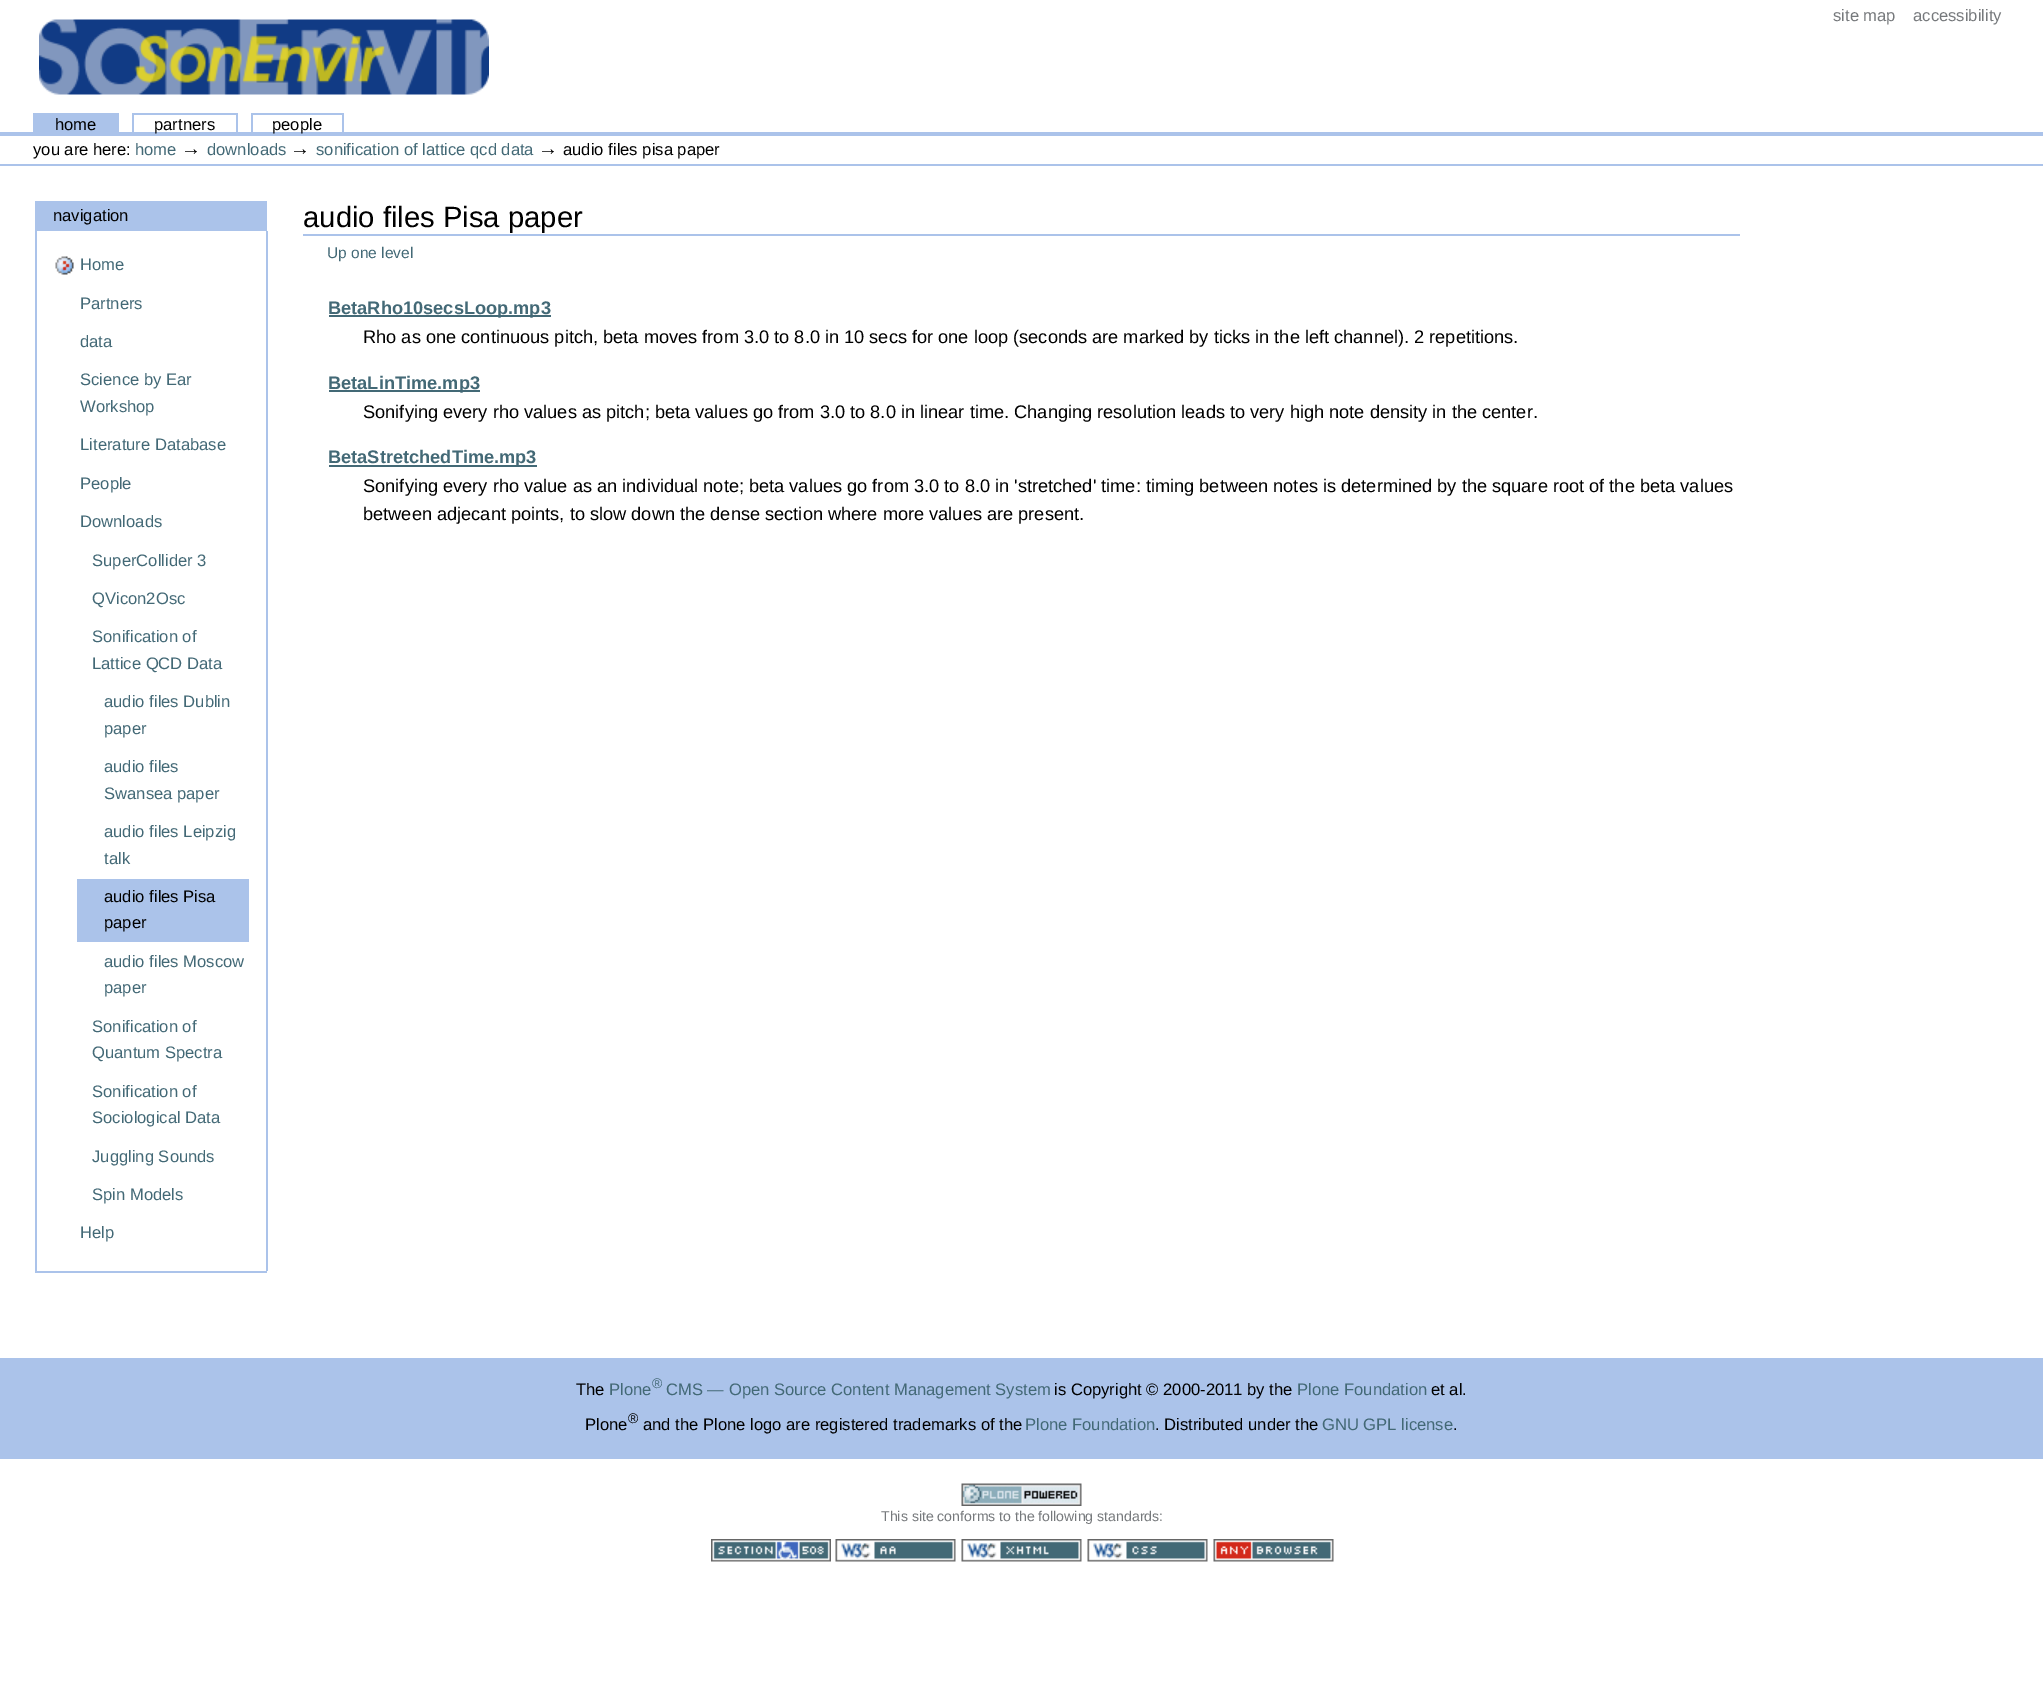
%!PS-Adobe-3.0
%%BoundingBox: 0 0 2043 1683
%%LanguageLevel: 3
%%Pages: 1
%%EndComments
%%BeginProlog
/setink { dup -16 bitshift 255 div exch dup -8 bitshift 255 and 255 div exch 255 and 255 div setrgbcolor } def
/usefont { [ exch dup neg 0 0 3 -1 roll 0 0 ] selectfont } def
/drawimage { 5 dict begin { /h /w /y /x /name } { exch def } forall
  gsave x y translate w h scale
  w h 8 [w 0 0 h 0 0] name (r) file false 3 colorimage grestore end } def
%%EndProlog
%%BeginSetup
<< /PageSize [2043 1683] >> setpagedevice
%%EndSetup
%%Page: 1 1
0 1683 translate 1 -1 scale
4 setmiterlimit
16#FFFFFF setink
0 0 2043 1683 rectfill
/LiberationSans-Regular 16.6 usefont
16#76797C setink
1833 21 moveto (site map) show
1913 21 moveto (accessibility) show
(img1.raw) 39 19 450 76 drawimage
16#ABC3EA setink
33 113 86 19 rectfill
16#000000 setink
55 130 moveto (home) show
16#ABC3EA setink
0 132 2043 4 rectfill
16#000000 setink
154 130 moveto (partners) show
[
    [132 113 105 2 16#ABC3EA]
    [236 113 2 19 16#ABC3EA]
    [132 113 2 19 16#ABC3EA]
] { aload pop setink rectfill } forall
16#000000 setink
272 130 moveto (people) show
[
    [251 113 93 2 16#ABC3EA]
    [342 113 2 19 16#ABC3EA]
    [251 113 2 19 16#ABC3EA]
    [0 164 2043 2 16#ABC3EA]
] { aload pop setink rectfill } forall
16#000000 setink
33 155 moveto (you are here:) show
16#436976 setink
135 155 moveto (home) show
/LiberationSans-Regular 20 usefont
16#000000 setink
181 155 moveto (→) show
/LiberationSans-Regular 16.6 usefont
16#436976 setink
207 155 moveto (downloads) show
/LiberationSans-Regular 20 usefont
16#000000 setink
290 155 moveto (→) show
/LiberationSans-Regular 16.6 usefont
16#436976 setink
316 155 moveto (sonification of lattice qcd data) show
/LiberationSans-Regular 20 usefont
16#000000 setink
538 155 moveto (→) show
/LiberationSans-Regular 16.6 usefont
563 155 moveto (audio files pisa paper) show
16#ABC3EA setink
35 1271 232 2 rectfill
35 201 232 30 rectfill
16#000000 setink
53 221 moveto (navigation) show
16#ABC3EA setink
266 231 2 1040 rectfill
35 231 2 1040 rectfill
(img2.raw) 55 256 19 19 drawimage
16#436976 setink
[
    [(Home) 80 270]
    [(Partners) 80 309]
    [(data) 80 347]
    [(Science by Ear) 80 385]
    [(Workshop) 80 412]
    [(Literature Database) 80 450]
    [(People) 80 489]
    [(Downloads) 80 527]
    [(SuperCollider 3) 92 566]
    [(QVicon2Osc) 92 604]
    [(Sonification of) 92 642]
    [(Lattice QCD Data) 92 669]
    [(audio files Dublin) 104 707]
    [(paper) 104 734]
    [(audio files) 104 772]
    [(Swansea paper) 104 799]
    [(audio files Leipzig) 104 837]
    [(talk) 104 864]
] { aload pop moveto show } forall
16#ABC3EA setink
77 879 172 63 rectfill
16#000000 setink
104 902 moveto (audio files Pisa) show
104 928 moveto (paper) show
16#436976 setink
[
    [(audio files Moscow) 104 967]
    [(paper) 104 993]
    [(Sonification of) 92 1032]
    [(Quantum Spectra) 92 1058]
    [(Sonification of) 92 1097]
    [(Sociological Data) 92 1123]
    [(Juggling Sounds) 92 1162]
    [(Spin Models) 92 1200]
    [(Help) 80 1238]
] { aload pop moveto show } forall
16#ABC3EA setink
303 234 1437 2 rectfill
/LiberationSans-Regular 29.25 usefont
16#000000 setink
303 227 moveto (audio files Pisa paper) show
/LiberationSans-Regular 15.5 usefont
16#436976 setink
327 258 moveto (Up one level) show
329 315 222 2 rectfill
/LiberationSans-Bold 18.22 usefont
328 314 moveto (BetaRho10secsLoop.mp3) show
/LiberationSans-Regular 18.22 usefont
16#000000 setink
363 343 moveto (Rho as one continuous pitch, beta moves from 3.0 to 8.0 in 10 secs for one loop \(seconds are marked by ticks in the left channel\). 2 repetitions.) show
16#436976 setink
329 390 151 2 rectfill
/LiberationSans-Bold 18.22 usefont
328 389 moveto (BetaLinTime.mp3) show
/LiberationSans-Regular 18.22 usefont
16#000000 setink
363 418 moveto (Sonifying every rho values as pitch; beta values go from 3.0 to 8.0 in linear time. Changing resolution leads to very high note density in the center.) show
16#436976 setink
329 465 208 2 rectfill
/LiberationSans-Bold 18.22 usefont
328 463 moveto (BetaStretchedTime.mp3) show
/LiberationSans-Regular 18.22 usefont
16#000000 setink
363 492 moveto (Sonifying every rho value as an individual note; beta values go from 3.0 to 8.0 in 'stretched' time: timing between notes is determined by the square root of the beta values) show
363 520 moveto (between adjecant points, to slow down the dense section where more values are present.) show
16#ABC3EA setink
0 1358 2043 101 rectfill
/LiberationSans-Regular 16.6 usefont
16#000000 setink
576 1395 moveto (The) show
16#436976 setink
609 1395 moveto (Plone) show
/LiberationSans-Regular 14 usefont
652 1388 moveto (®) show
/LiberationSans-Regular 16.6 usefont
666 1395 moveto (CMS — Open Source Content Management System) show
16#000000 setink
1054 1395 moveto (is Copyright © 2000-2011 by the) show
16#436976 setink
1297 1395 moveto (Plone Foundation) show
16#000000 setink
1431 1395 moveto (et al.) show
585 1430 moveto (Plone) show
/LiberationSans-Regular 14 usefont
628 1423 moveto (®) show
/LiberationSans-Regular 16.6 usefont
643 1430 moveto (and the Plone logo are registered trademarks of the) show
16#436976 setink
1025 1430 moveto (Plone Foundation) show
16#000000 setink
1155 1430 moveto (. Distributed under the) show
16#436976 setink
1322 1430 moveto (GNU GPL license) show
16#000000 setink
1453 1430 moveto (.) show
(img3.raw) 961 1483 121 23 drawimage
/LiberationSans-Regular 14.1 usefont
16#76797C setink
881 1521 moveto (This site conforms to the following standards:) show
(img4.raw) 711 1539 120 23 drawimage
(img5.raw) 835 1539 121 23 drawimage
(img6.raw) 961 1539 121 23 drawimage
(img7.raw) 1087 1539 121 23 drawimage
(img8.raw) 1213 1539 121 23 drawimage
showpage
%%EOF
